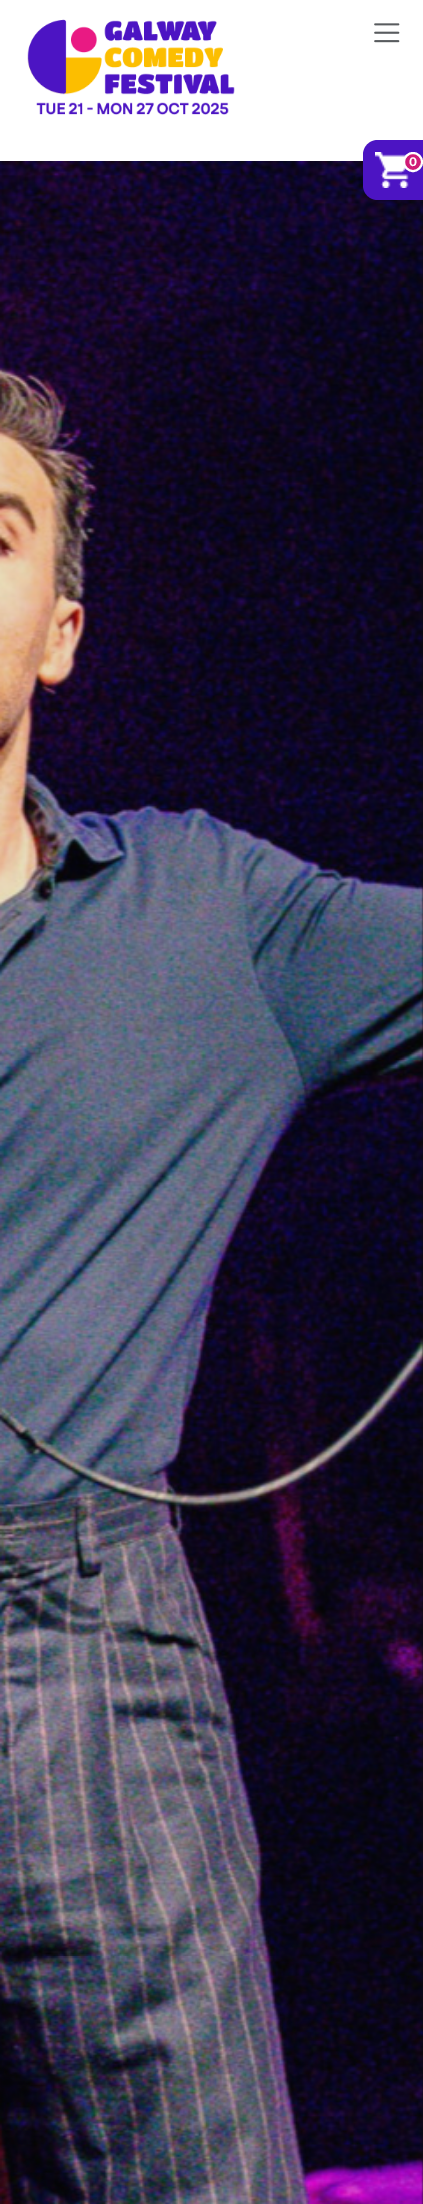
%!PS-Adobe-3.0
%%BoundingBox: 0 0 423 2204
%%LanguageLevel: 3
%%Pages: 1
%%EndComments
%%BeginProlog
/setink { dup -16 bitshift 255 div exch dup -8 bitshift 255 and 255 div exch 255 and 255 div setrgbcolor } def
/usefont { [ exch dup neg 0 0 3 -1 roll 0 0 ] selectfont } def
/disc { newpath 0 360 arc closepath } def
/drawimage { 5 dict begin { /h /w /y /x /name } { exch def } forall
  gsave x y translate w h scale
  w h 8 [w 0 0 h 0 0] name (r) file false 3 colorimage grestore end } def
%%EndProlog
%%BeginSetup
<< /PageSize [423 2204] >> setpagedevice
%%EndSetup
%%Page: 1 1
0 2204 translate 1 -1 scale
4 setmiterlimit
16#FFFFFF setink
0 0 423 2204 rectfill
(img1.raw) 27 19 208 96 drawimage
(img2.raw) 374 23 26 20 drawimage
16#0E0E0E setink
421 200 2 2004 rectfill
(img4.raw) 0 161 423 2043 drawimage
16#4C14C3 setink
378 140 moveto 423 140 lineto 423 200 lineto 378 200 lineto 369.5 200 363 193.5 363 185 curveto 363 155 lineto 363 146.5 369.5 140 378 140 curveto closepath fill
(img3.raw) 375 152 34 36 drawimage
16#D01A76 setink
413 162 9 disc gsave fill grestore
16#FFFFFF setink
2 setlinewidth
stroke
/Inter-Bold 12 usefont
409 166 moveto (0) show
showpage
%%EOF
